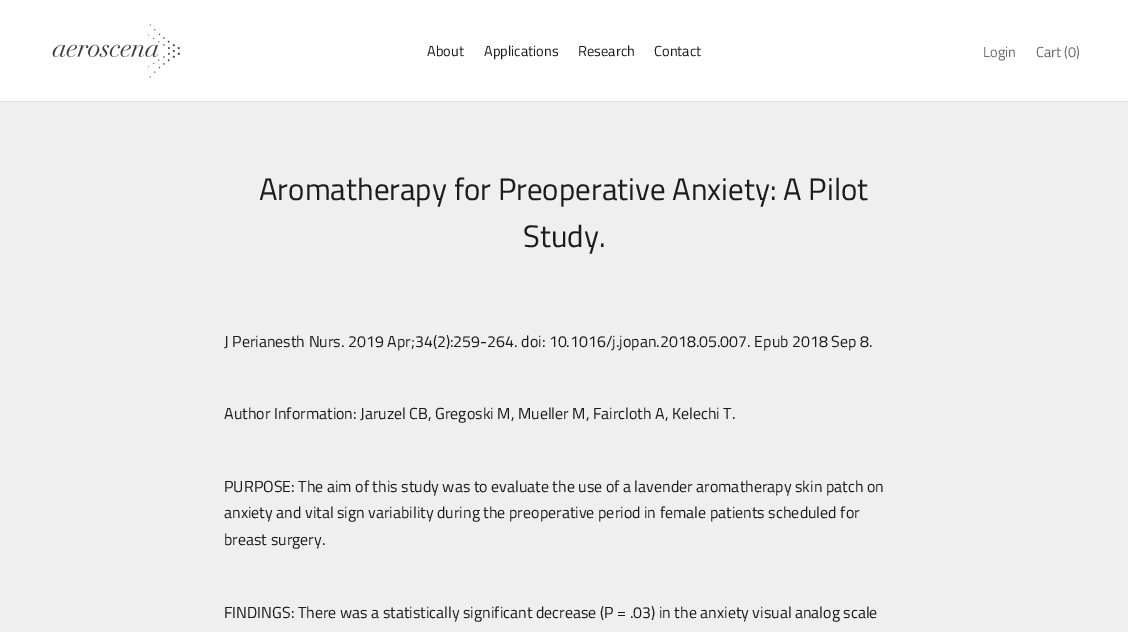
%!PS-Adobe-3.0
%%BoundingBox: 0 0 1128 632
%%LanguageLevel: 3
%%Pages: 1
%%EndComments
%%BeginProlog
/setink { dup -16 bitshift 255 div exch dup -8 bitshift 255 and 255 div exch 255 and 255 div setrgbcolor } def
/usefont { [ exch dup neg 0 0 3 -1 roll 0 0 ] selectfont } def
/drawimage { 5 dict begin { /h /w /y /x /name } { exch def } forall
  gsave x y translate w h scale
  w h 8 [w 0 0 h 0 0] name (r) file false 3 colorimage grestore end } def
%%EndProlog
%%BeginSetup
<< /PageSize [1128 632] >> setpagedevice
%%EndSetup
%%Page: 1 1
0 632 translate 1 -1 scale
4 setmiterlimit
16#FFFFFF setink
0 0 1128 632 rectfill
16#DDDDDD setink
0 101 1128 1 rectfill
(img1.raw) 52 24 128 54 drawimage
/TitilliumWeb-Regular 14.5 usefont
16#1C1C1C setink
[
    [(About) 427 56]
    [(Applications) 484 56]
    [(Research) 578 56]
    [(Contact) 654 56]
] { aload pop moveto show } forall
16#6B6B6B setink
983 57 moveto (Login) show
1036 57 moveto (Cart \(0\)) show
16#EFEFEF setink
0 102 1128 530 rectfill
/TitilliumWeb-Regular 31 usefont
16#1C1C1C setink
259 200 moveto (Aromatherapy for Preoperative Anxiety: A Pilot) show
523 247 moveto (Study.) show
/TitilliumWeb-Regular 16 usefont
[
    [(J Perianesth Nurs. 2019 Apr;34\(2\):259-264. doi: 10.1016/j.jopan.2018.05.007. Epub 2018 Sep 8.) 224 347]
    [(Author Information: Jaruzel CB, Gregoski M, Mueller M, Faircloth A, Kelechi T.) 224 419]
    [(PURPOSE: The aim of this study was to evaluate the use of a lavender aromatherapy skin patch on) 224 492]
    [(anxiety and vital sign variability during the preoperative period in female patients scheduled for) 224 518]
    [(breast surgery.) 224 545]
    [(FINDINGS: There was a statistically significant decrease \(P = .03\) in the anxiety visual analog scale) 224 618]
] { aload pop moveto show } forall
showpage
%%EOF
